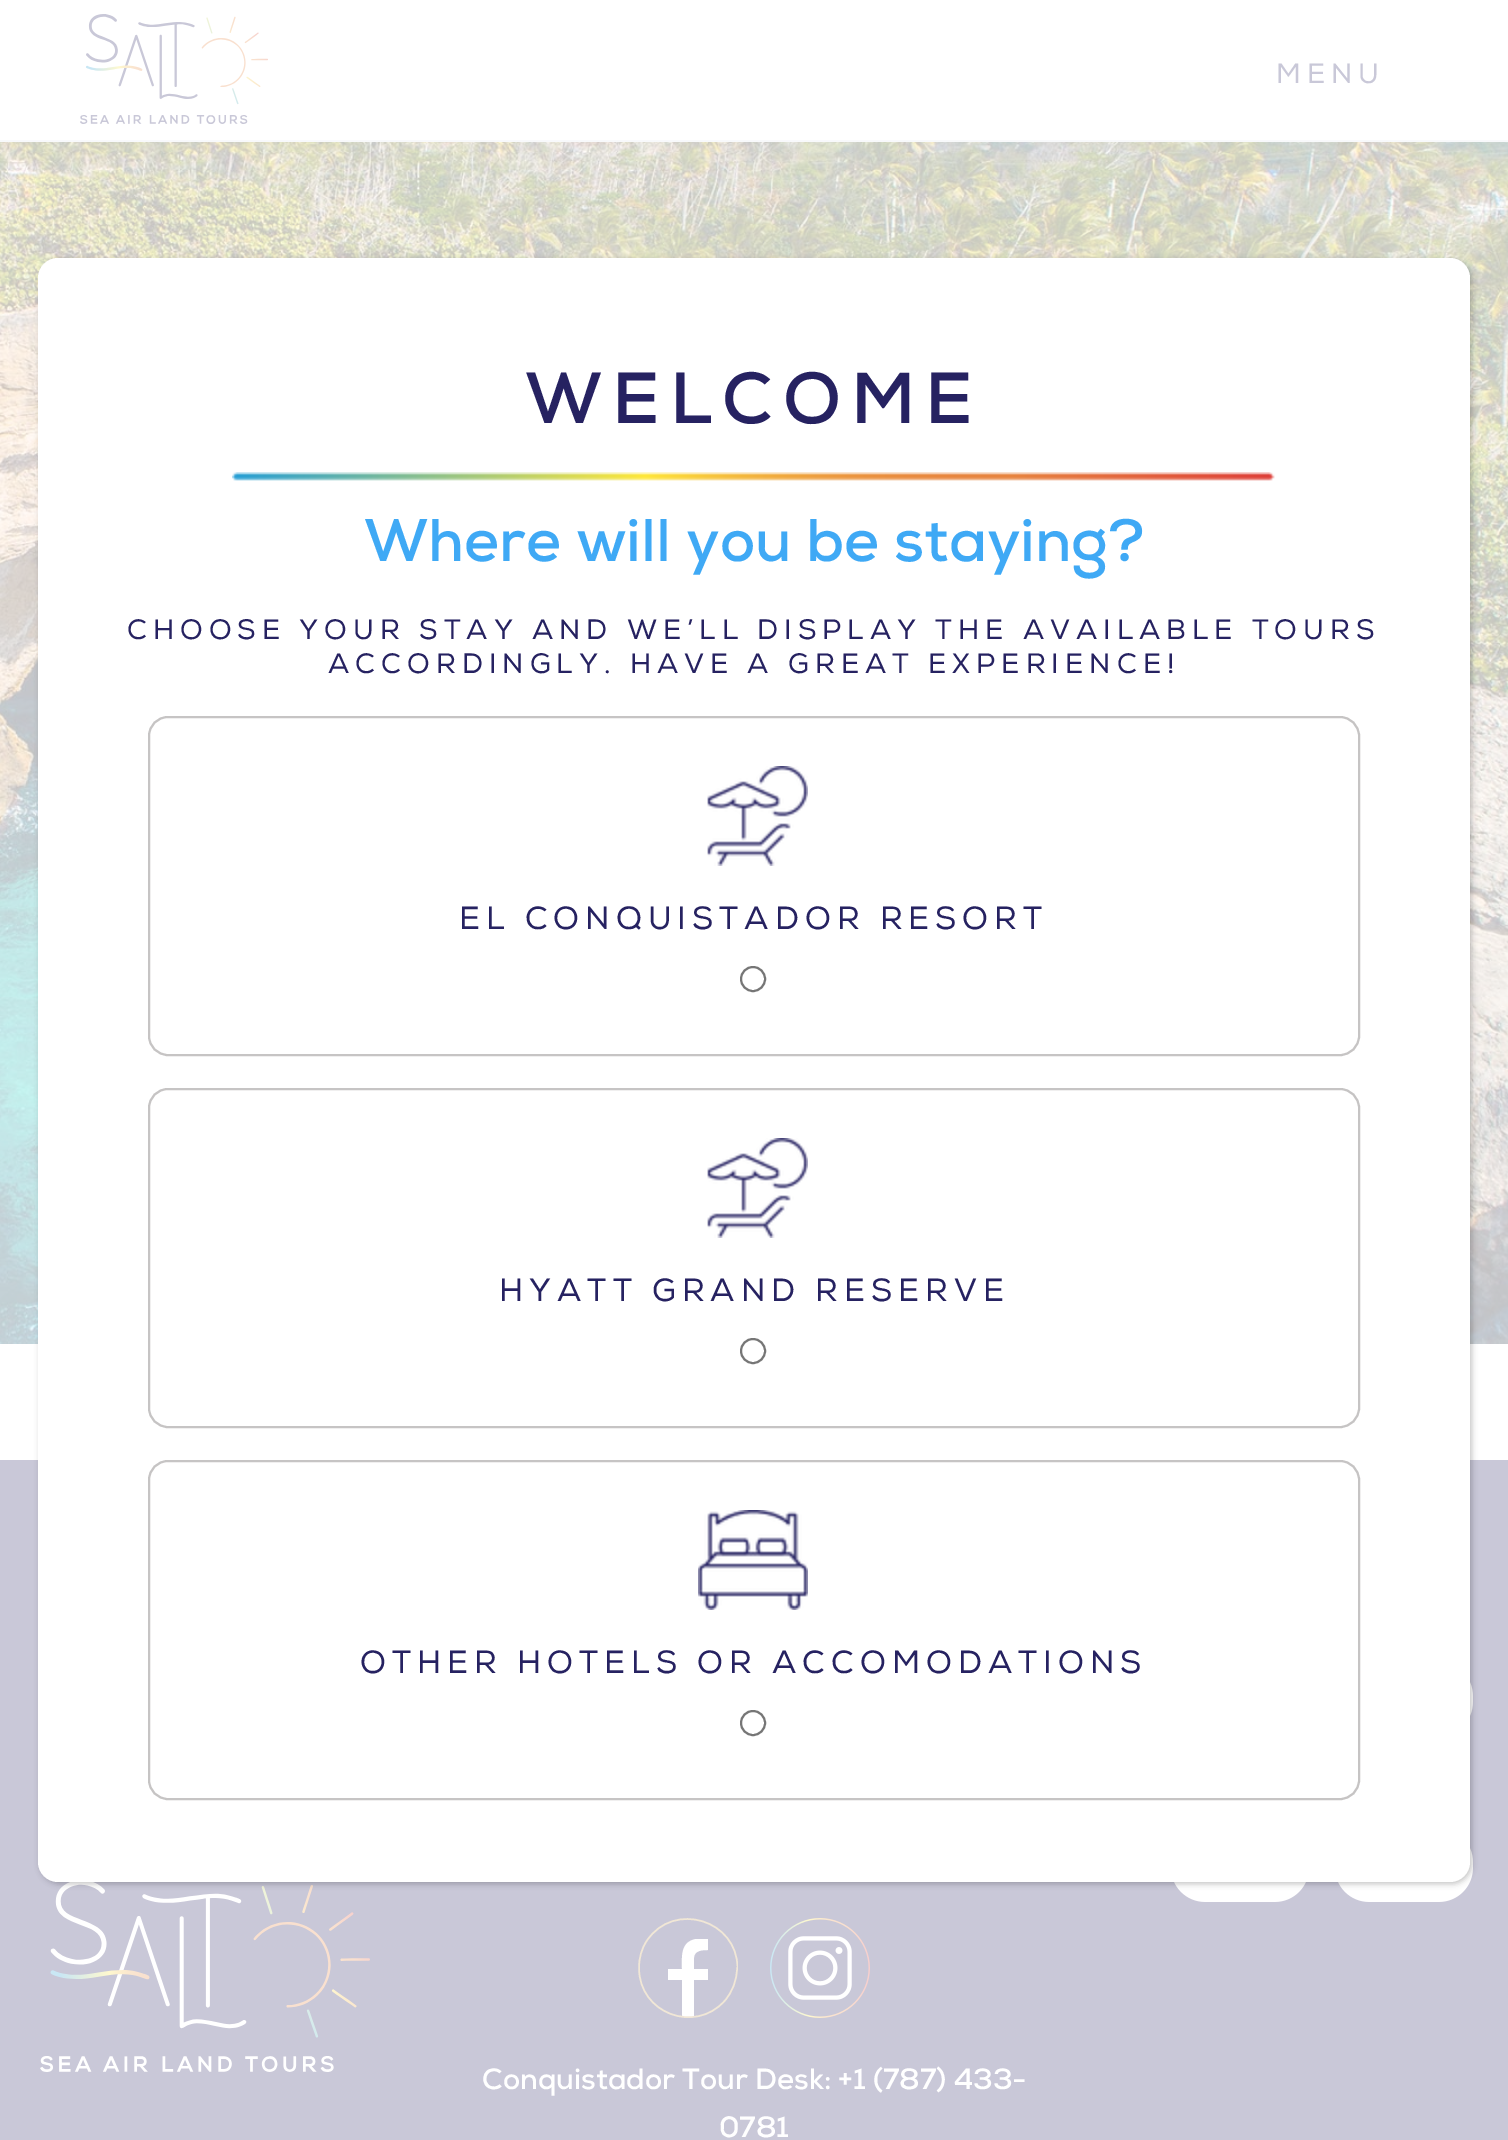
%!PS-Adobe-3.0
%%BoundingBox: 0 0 1508 2140
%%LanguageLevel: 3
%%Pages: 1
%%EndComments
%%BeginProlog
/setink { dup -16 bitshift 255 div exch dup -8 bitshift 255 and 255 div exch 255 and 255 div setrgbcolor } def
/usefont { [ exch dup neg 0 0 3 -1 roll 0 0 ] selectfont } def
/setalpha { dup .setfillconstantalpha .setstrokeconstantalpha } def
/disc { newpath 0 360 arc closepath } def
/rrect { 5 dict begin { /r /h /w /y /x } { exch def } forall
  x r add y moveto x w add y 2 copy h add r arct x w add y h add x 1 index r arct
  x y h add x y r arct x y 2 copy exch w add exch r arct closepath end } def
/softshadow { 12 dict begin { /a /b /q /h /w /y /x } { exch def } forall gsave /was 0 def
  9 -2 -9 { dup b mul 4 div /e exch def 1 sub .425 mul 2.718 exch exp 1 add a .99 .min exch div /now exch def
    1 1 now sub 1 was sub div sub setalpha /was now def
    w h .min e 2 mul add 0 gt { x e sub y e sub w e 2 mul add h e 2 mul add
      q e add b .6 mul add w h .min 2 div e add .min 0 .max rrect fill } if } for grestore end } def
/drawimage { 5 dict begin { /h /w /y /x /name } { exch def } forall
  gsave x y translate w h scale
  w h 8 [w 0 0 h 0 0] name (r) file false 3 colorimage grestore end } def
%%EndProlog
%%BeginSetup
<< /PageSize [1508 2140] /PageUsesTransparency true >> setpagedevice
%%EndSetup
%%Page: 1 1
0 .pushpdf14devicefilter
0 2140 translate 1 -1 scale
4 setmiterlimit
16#FFFFFF setink
0 0 1508 2140 rectfill
16#F8F9FB setink
0 140 1508 2 rectfill
(img1.raw) 80 14 188 110 drawimage
/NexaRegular-Regular 28 usefont
16#C9C8D8 setink
1276 83 moveto 6 0 (MENU) ashow
(img2.raw) 0 142 1508 1202 drawimage
0 1460 1508 680 rectfill
(img3.raw) 1470 1682 3 34 drawimage
(img4.raw) 1174 1882 132 20 drawimage
(img5.raw) 1338 1848 135 54 drawimage
(img6.raw) 40 1882 330 190 drawimage
16#FFFFFF setink
694 1958 moveto 694 1969 lineto 708 1969 lineto 708 1980 lineto 694 1980 lineto 694 2017 lineto 690 2017 686 2017 682 2017 curveto 682 1980 lineto 668 1980 lineto 668 1969 lineto 682 1969 lineto 682 1957 680 1942 696 1939 curveto 708 1939 lineto 708 1950 lineto 703 1950 694 1950 694 1958 curveto closepath fill
gsave
638 1918 100 100 rectclip
16#F1E7D6 setink
1.5 setlinewidth
737 1968 moveto 737 1980 732.5 1992 724.5 2001 curveto 695 2034 639 2013.5 639 1968 curveto 639 1958 641.5 1948.5 647 1940.5 curveto 674 1900.5 737.5 1920 737.5 1968 curveto closepath stroke
grestore
(img7.raw) 770 1918 100 100 drawimage
/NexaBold-Bold 29.25 usefont
[
    [(Conquistador Tour Desk:) 482 2089]
    [(+1 \(787\) 433-) 838 2089]
    [(0781) 719 2137]
] { aload pop moveto show } forall
16#020202 setink
40 260 1432 1624 20 3 0.23 softshadow
16#FFFFFF setink
38 258 1432 1624 20 rrect fill
/NexaBold-Bold 72 usefont
16#262261 setink
525 423 moveto 10 0 (WELCOME) ashow
(img8.raw) 232 472 1043 9 drawimage
/NexaBold-Bold 60 usefont
16#3FA9F5 setink
364 561 moveto (Where will you be staying?) show
/NexaRegular-Regular 28 usefont
16#262261 setink
127 639 moveto 6 0 (CHOOSE YOUR STAY AND WE’LL DISPLAY THE AVAILABLE TOURS) ashow
328 673 moveto 6 0 (ACCORDINGLY. HAVE A GREAT EXPERIENCE!) ashow
16#C6C4C4 setink
2 setlinewidth
149 717 1210 338 19 rrect stroke
(img9.raw) 707 766 101 100 drawimage
/NexaRegular-Regular 32 usefont
16#262261 setink
459 929 moveto 6 0 (EL CONQUISTADOR RESORT) ashow
16#767676 setink
753 979 12 disc stroke
16#C6C4C4 setink
149 1089 1210 338 19 rrect stroke
(img9.raw) 707 1138 101 100 drawimage
16#262261 setink
499 1301 moveto 6 0 (HYATT GRAND RESERVE) ashow
16#767676 setink
753 1351 12 disc stroke
16#C6C4C4 setink
149 1461 1210 338 19 rrect stroke
(img10.raw) 698 1510 110 100 drawimage
16#262261 setink
360 1673 moveto 6 0 (OTHER HOTELS OR ACCOMODATIONS) ashow
16#767676 setink
753 1723 12 disc stroke
.poppdf14devicefilter showpage
%%EOF
